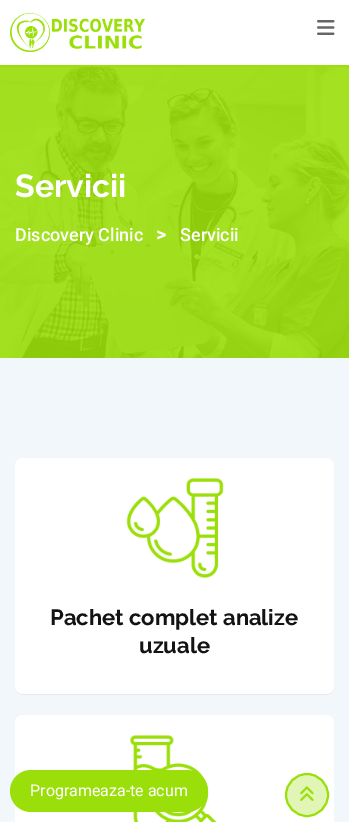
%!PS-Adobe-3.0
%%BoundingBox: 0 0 349 822
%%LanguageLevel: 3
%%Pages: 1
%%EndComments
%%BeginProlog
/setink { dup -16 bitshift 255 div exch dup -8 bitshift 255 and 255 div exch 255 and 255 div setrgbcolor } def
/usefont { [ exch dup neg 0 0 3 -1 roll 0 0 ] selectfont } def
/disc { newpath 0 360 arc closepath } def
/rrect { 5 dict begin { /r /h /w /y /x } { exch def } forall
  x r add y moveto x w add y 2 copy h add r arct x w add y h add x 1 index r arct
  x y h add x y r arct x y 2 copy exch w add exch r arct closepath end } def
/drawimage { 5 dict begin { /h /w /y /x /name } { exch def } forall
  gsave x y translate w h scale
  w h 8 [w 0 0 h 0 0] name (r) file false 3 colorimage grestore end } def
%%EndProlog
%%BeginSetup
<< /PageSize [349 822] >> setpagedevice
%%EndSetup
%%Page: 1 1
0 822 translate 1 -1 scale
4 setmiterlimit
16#FFFFFF setink
0 0 349 822 rectfill
16#9BDF0A setink
0 65 349 2 rectfill
(img1.raw) 10 13 135 39 drawimage
(img2.raw) 317 20 18 15 drawimage
(img3.raw) 0 67 349 291 drawimage
/Raleway-Bold 32 usefont
16#FFFFFF setink
15 197 moveto (Servicii) show
/Roboto-Medium 18 usefont
15 241 moveto (Discovery Clinic) show
/Roboto-Bold 20 usefont
156 241 moveto (>) show
/Roboto-Medium 18 usefont
180 241 moveto (Servicii) show
16#F1F7FA setink
0 358 349 464 rectfill
16#E7E8E9 setink
15 686 moveto 15 687 lineto 15 691 19 695 23 695 curveto 326 695 lineto 330 695 334 691 334 687 curveto 334 686 lineto 334 690 330 694 326 694 curveto 23 694 lineto 19 694 15 690 15 686 curveto closepath fill
16#FFFFFF setink
15 458 319 236 8 rrect fill
(img4.raw) 126 478 98 100 drawimage
/Raleway-Bold 22 usefont
16#131313 setink
50 625 moveto (Pachet complet analize) show
139 653 moveto (uzuale) show
16#FFFFFF setink
15 715 319 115 8 rrect fill
(img5.raw) 129 735 88 87 drawimage
16#9BDF0A setink
10 770 198 42 21 rrect fill
/Roboto-Regular 16 usefont
16#FFFFFF setink
30 796 moveto (Programeaza-te acum) show
16#E1F5B6 setink
307 795 21 disc gsave fill grestore
16#9BDF0A setink
2 setlinewidth
stroke
(img6.raw) 300 786 14 15 drawimage
showpage
%%EOF
